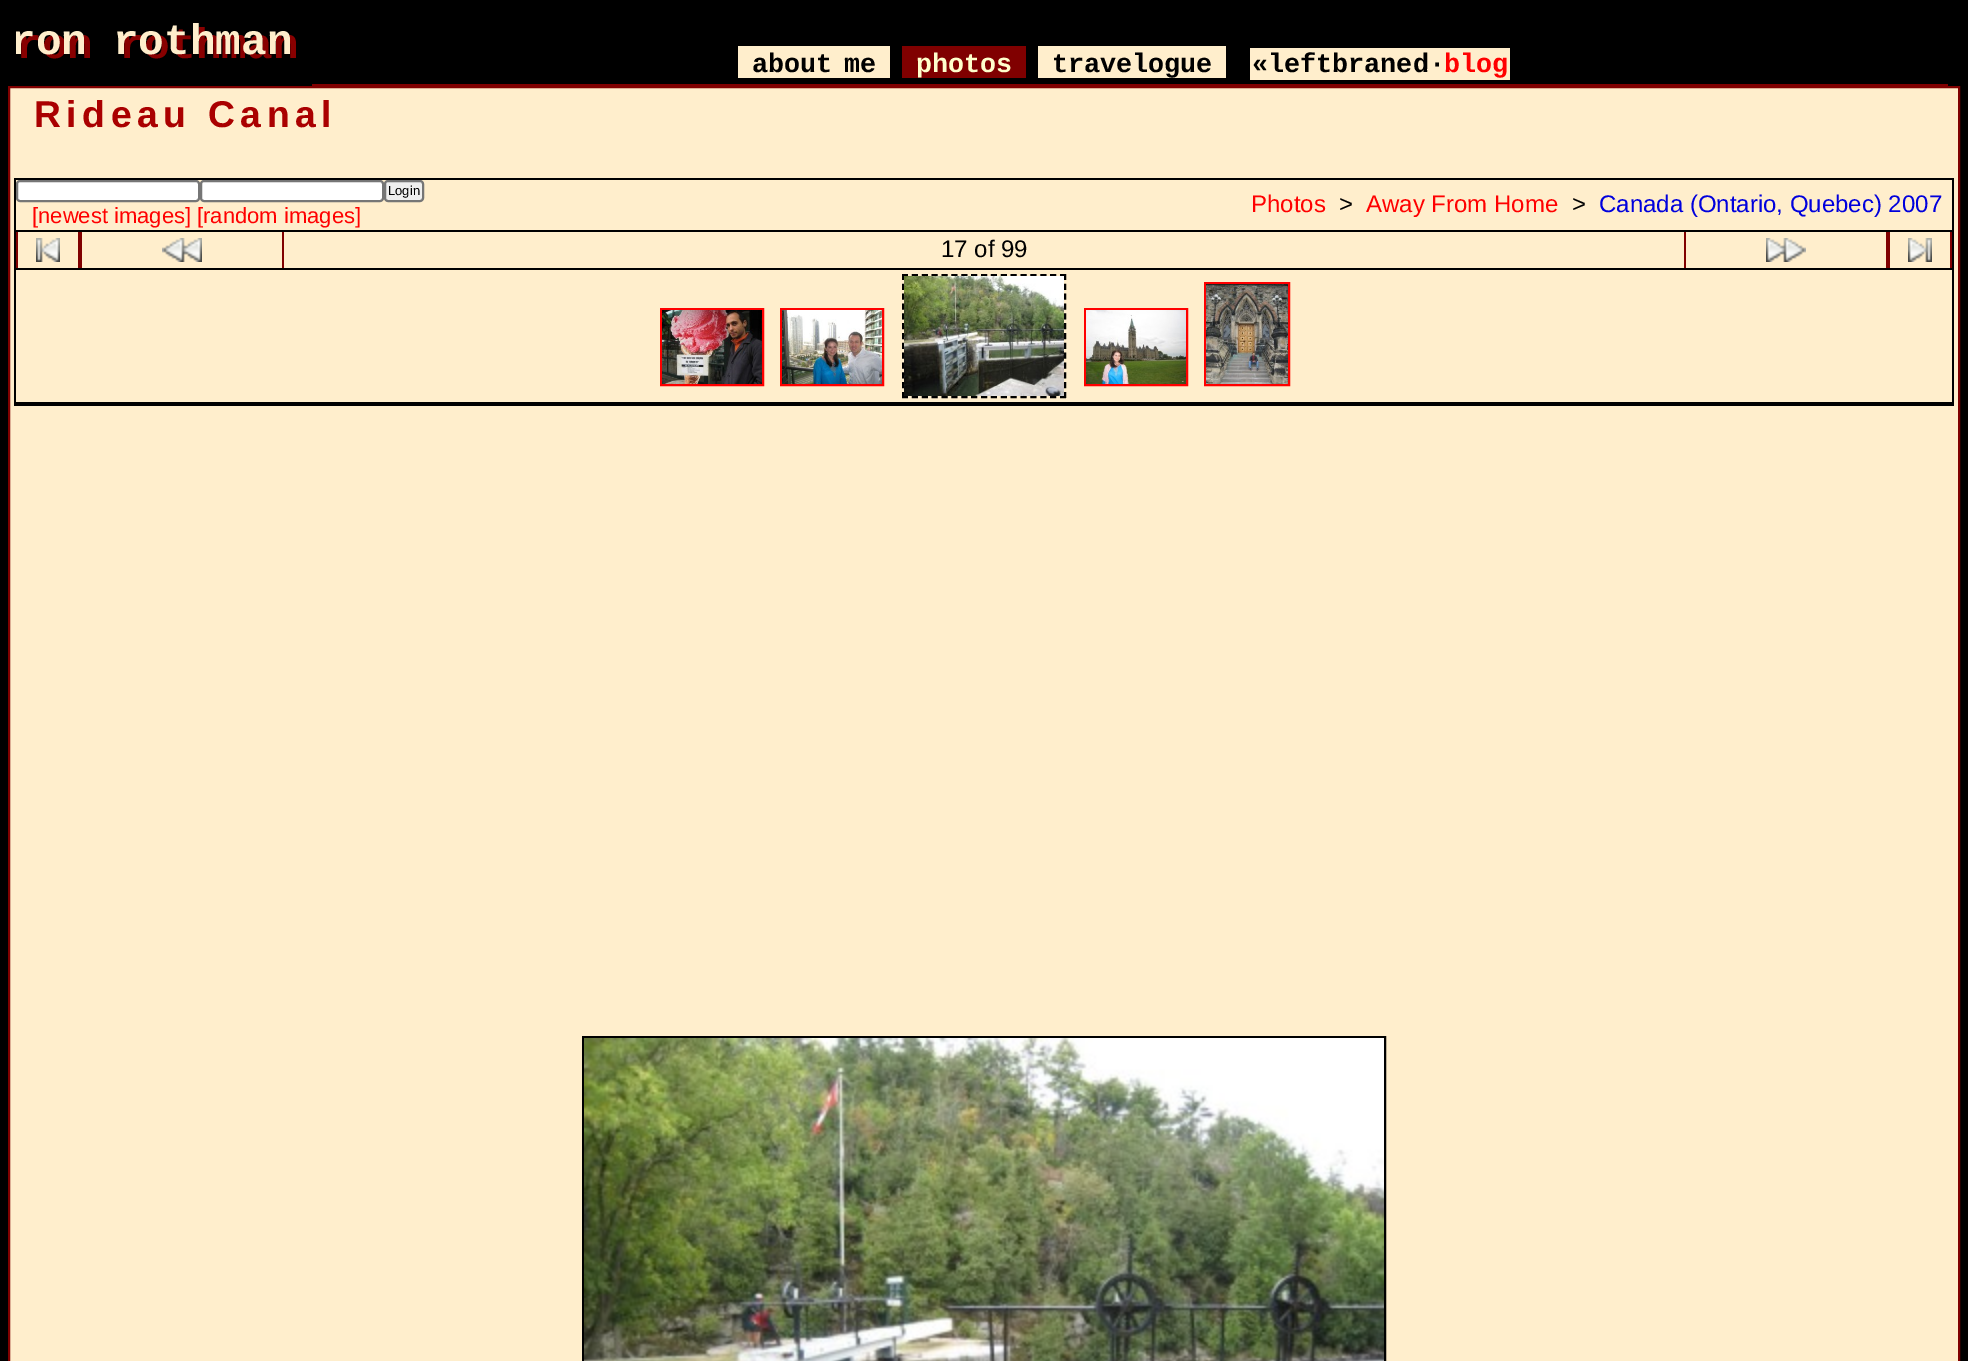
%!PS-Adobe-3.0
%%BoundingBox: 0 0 1968 1361
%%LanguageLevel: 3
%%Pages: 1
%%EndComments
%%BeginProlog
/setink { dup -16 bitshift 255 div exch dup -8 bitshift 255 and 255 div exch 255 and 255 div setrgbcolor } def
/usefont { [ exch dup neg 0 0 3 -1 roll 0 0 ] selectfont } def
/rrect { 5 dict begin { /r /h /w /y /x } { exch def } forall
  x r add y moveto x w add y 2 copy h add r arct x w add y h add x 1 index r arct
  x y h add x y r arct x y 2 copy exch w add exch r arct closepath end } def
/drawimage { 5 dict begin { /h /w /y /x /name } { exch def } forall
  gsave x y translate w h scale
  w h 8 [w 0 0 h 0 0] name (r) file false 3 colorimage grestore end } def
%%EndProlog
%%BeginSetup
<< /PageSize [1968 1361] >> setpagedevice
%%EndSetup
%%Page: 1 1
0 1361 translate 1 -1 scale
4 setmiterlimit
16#000000 setink
0 0 1968 1361 rectfill
/LiberationMono-Bold 42.75 usefont
16#880000 setink
16 58 moveto (ron rothman) show
gsave
16 22 284 48 rectclip
16#FFEECC setink
10 54 moveto (ron rothman) show
grestore
16#800000 setink
312 84 1636 2 rectfill
16#FFEECC setink
738 46 152 32 rectfill
/LiberationMono-Bold 26.75 usefont
16#000000 setink
752 72 moveto -4 0 32 (about me) widthshow
16#800000 setink
902 46 124 32 rectfill
16#FFFFCC setink
916 72 moveto (photos) show
16#FFEECC setink
1038 46 188 32 rectfill
16#000000 setink
1052 72 moveto (travelogue) show
16#FFEECC setink
1250 48 260 32 rectfill
16#000000 setink
1252 72 moveto («leftbraned·) show
16#FF0000 setink
1444 72 moveto (blog) show
16#FFEECC setink
9 87 moveto 1959 87 lineto 1959 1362 lineto 9 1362 lineto closepath gsave fill grestore
16#800000 setink
2 setlinewidth
stroke
/LiberationSans-Bold 37.25 usefont
16#AA0000 setink
34 127 moveto 5.6 0 (Rideau Canal) ashow
[
    [14 178 1940 2 16#000000]
    [1952 180 2 224 16#000000]
    [14 230 1940 2 16#000000]
    [14 180 2 52 16#000000]
] { aload pop setink rectfill } forall
16#FFFFFF setink
17 181 182 20 3 rrect gsave fill grestore
16#767676 setink
stroke
16#FFFFFF setink
201 181 182 20 3 rrect gsave fill grestore
16#767676 setink
stroke
16#EFEFEF setink
385 181 38 20 3 rrect gsave fill grestore
16#767676 setink
stroke
/LiberationSans-Regular 13 usefont
16#000000 setink
388 195 moveto (Login) show
/LiberationSans-Regular 22 usefont
16#FF0000 setink
32 223 moveto ([newest images] [random images]) show
/LiberationSans-Regular 24 usefont
1251 212 moveto (Photos) show
16#000000 setink
1339 212 moveto (>) show
16#FF0000 setink
1366 212 moveto (Away From Home) show
16#000000 setink
1572 212 moveto (>) show
16#0000DD setink
1599 212 moveto (Canada \(Ontario, Quebec\) 2007) show
[
    [14 402 1940 4 16#000000]
    [14 232 2 172 16#000000]
    [16 268 1936 2 16#000000]
    [78 232 4 36 16#800000]
    [16 232 2 36 16#800000]
] { aload pop setink rectfill } forall
(img1.raw) 36 238 24 24 drawimage
282 232 2 36 rectfill
(img2.raw) 162 238 40 24 drawimage
16#000000 setink
941 257 moveto (17 of 99) show
16#800000 setink
1886 232 4 36 rectfill
1684 232 2 36 rectfill
(img3.raw) 1766 238 40 24 drawimage
1950 232 2 36 rectfill
(img4.raw) 1908 238 24 24 drawimage
16#FF0000 setink
661 309 102 76 rectstroke
781 309 102 76 rectstroke
(img5.raw) 662 310 100 74 drawimage
(img6.raw) 782 310 100 74 drawimage
16#000000 setink
[6 3.88] 0 setdash
902 275 moveto 1066 275 lineto stroke
[6 3.84] 0 setdash
1065 274 moveto 1065 398 lineto stroke
[6 3.88] 0 setdash
902 397 moveto 1066 397 lineto stroke
[6 3.84] 0 setdash
903 274 moveto 903 398 lineto stroke
(img7.raw) 904 276 160 120 drawimage
16#FF0000 setink
[] 0 setdash
1205 283 84 102 rectstroke
1085 309 102 76 rectstroke
(img8.raw) 1206 284 82 100 drawimage
(img9.raw) 1086 310 100 74 drawimage
16#000000 setink
583 1037 802 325 rectstroke
(img10.raw) 584 1038 800 323 drawimage
showpage
%%EOF
